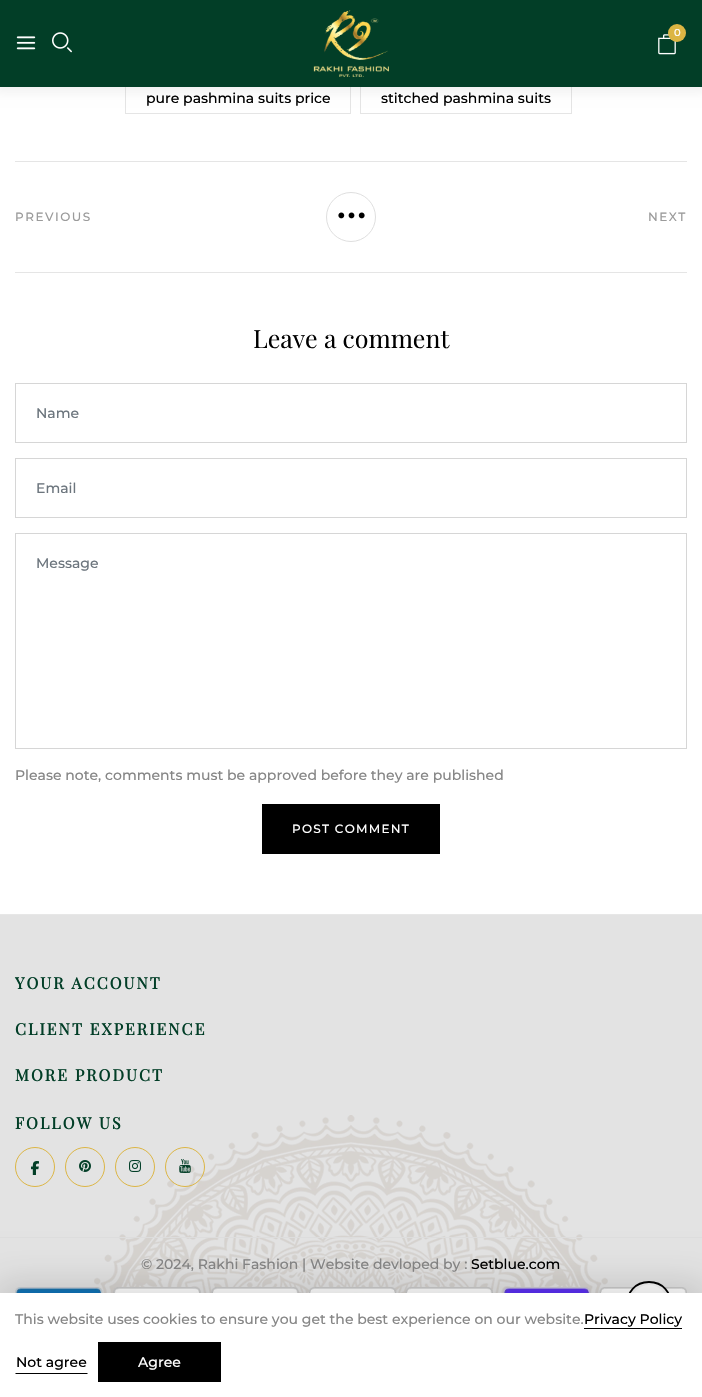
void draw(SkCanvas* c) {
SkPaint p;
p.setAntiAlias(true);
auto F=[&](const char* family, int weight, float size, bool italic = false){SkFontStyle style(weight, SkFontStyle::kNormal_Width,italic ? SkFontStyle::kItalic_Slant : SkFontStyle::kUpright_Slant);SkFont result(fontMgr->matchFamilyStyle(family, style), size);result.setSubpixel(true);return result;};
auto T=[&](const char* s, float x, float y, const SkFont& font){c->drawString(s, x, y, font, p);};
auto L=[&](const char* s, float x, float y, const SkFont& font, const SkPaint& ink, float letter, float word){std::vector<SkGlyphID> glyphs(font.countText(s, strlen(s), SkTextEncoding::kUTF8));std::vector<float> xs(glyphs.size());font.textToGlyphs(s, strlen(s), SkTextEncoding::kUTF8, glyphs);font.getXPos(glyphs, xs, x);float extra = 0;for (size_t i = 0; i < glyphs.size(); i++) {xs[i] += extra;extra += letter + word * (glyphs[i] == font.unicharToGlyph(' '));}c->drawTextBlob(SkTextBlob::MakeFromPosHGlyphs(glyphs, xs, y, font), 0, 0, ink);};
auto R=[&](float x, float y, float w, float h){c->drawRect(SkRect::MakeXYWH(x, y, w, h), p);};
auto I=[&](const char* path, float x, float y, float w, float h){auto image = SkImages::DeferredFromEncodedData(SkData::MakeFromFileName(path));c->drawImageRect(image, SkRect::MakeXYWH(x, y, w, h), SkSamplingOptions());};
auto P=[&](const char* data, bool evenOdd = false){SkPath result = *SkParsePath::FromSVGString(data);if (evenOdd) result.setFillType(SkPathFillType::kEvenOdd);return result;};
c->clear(0xffffffff);
p.setStroke(true);
p.setStrokeWidth(1);
p.setColor(0xffe5e5e5);
c->drawRect(SkRect::MakeXYWH(125.5,82.5,225,31),p);
c->drawRect(SkRect::MakeXYWH(360.5,82.5,211,31),p);
p.setStroke(false);
p.setColor(0x0d000000);
p.setMaskFilter(SkMaskFilter::MakeBlur(kNormal_SkBlurStyle, 5));
c->drawRect(SkRect::MakeXYWH(-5,-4,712,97),p);
p.setMaskFilter(nullptr);
p.setColor(0xff023e27);
R(0,0,702,87);
I("1.png",16,36,20,14);
I("2.png",52,32,20,21);
I("3.png",313,10,76,67);
I("4.png",658,34,18,21);
p.setColor(0xffdcb543);
c->drawCircle(677,33,9,p);
auto f1 = F("Montserrat",500,10);
p.setColor(0xffffffff);
T("0",674,36,f1);
auto f2 = F("Montserrat",500,14);
p.setColor(0xff000000);
T("pure pashmina suits price",146,103,f2);
T("stitched pashmina suits",381,103,f2);
p.setColor(0xffe5e5e5);
R(15,161,672,1);
R(15,272,672,1);
auto f3 = F("Montserrat",500,12);
p.setColor(0xff9b9b9b);
L("PREVIOUS",15,221,f3,p,1.5,0);
p.setStroke(true);
p.setColor(0xffdfdfdf);
c->drawCircle(351,217,24.5,p);
I("5.png",338,212,27,7);
p.setStroke(false);
p.setColor(0xff9b9b9b);
L("NEXT",648,221,f3,p,1.5,0);
auto f4 = F("Playfair Display",400,25);
p.setColor(0xff000000);
T("Leave a comment",253,348,f4);
p.setStroke(true);
p.setColor(0xffd6d6d6);
c->drawRect(SkRect::MakeXYWH(15.5,383.5,671,59),p);
p.setStroke(false);
p.setColor(0xff6c757d);
T("Name",36,418,f2);
p.setStroke(true);
p.setColor(0xffd6d6d6);
c->drawRect(SkRect::MakeXYWH(15.5,458.5,671,59),p);
p.setStroke(false);
p.setColor(0xff6c757d);
T("Email",36,493,f2);
p.setStroke(true);
p.setColor(0xffd6d6d6);
c->drawRect(SkRect::MakeXYWH(15.5,533.5,671,215),p);
p.setStroke(false);
p.setColor(0xff6c757d);
T("Message",36,568,f2);
p.setColor(0xff868686);
T("Please note, comments must be approved before they are published",15,780,f2);
p.setColor(0xff000000);
R(262,804,178,50);
p.setColor(0xffffffff);
L("POST COMMENT",292,833,f3,p,1.25,0);
p.setColor(0xffe3e3e3);
R(0,915,702,378);
I("6.png",94,1115,514,178);
p.setColor(0xffe7e7e7);
R(0,914,702,1);
p.setColor(0xffdedede);
R(0,1237,702,1);
auto f5 = F("Playfair Display",700,16);
p.setColor(0xff023e27);
L("YOUR ACCOUNT",15,989,f5,p,2,0);
L("CLIENT EXPERIENCE",15,1035,f5,p,2,0);
L("MORE PRODUCT",15,1081,f5,p,2,0);
L("FOLLOW US",15,1129,f5,p,2,0);
p.setStroke(true);
p.setColor(0xffdcb543);
c->drawCircle(35,1167,19.5,p);
I("7.png",31,1161,8,14);
c->drawCircle(85,1167,19.5,p);
I("8.png",79,1160,12,12);
c->drawCircle(135,1167,19.5,p);
I("9.png",129,1160,12,12);
c->drawCircle(185,1167,19.5,p);
I("10.png",179,1159,12,14);
p.setStroke(false);
p.setColor(0xff868686);
T("© 2024, Rakhi Fashion | Website devloped by :",141,1269,f2);
p.setColor(0xff000000);
T("Setblue.com",471,1269,f2);
I("11.png",15,1287,672,6);
p.setColor(0xffffffff);
c->drawCircle(649,1304,21,p);
p.setStroke(true);
p.setStrokeWidth(4);
p.setColor(0xfff5f5f5);
c->drawCircle(649,1304,21,p);
p.setStrokeWidth(1.8);
p.setColor(0xff000000);
c->drawPath(P("M649 1282c29 0 29 44 0 44c-29 0-29-44 0-44"),p);
p.setStroke(false);
p.setColor(0x24000000);
p.setMaskFilter(SkMaskFilter::MakeBlur(kNormal_SkBlurStyle, 17.5));
c->drawRect(SkRect::MakeXYWH(-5,1283,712,114),p);
p.setMaskFilter(nullptr);
p.setColor(0xffffffff);
R(0,1293,702,104);
p.setColor(0xff868686);
T("This website uses cookies to ensure you get the best experience on our website.",15,1324,f2);
p.setColor(0xff000000);
R(584,1328,98,1);
T("Privacy Policy",584,1324,f2);
c->drawPath(P("M88 1374h-73l1-1h71z"),p);
T("Not agree",16,1367,f2);
R(98,1342,123,40);
p.setColor(0xffffffff);
T("Agree",138,1367,f2);
}
